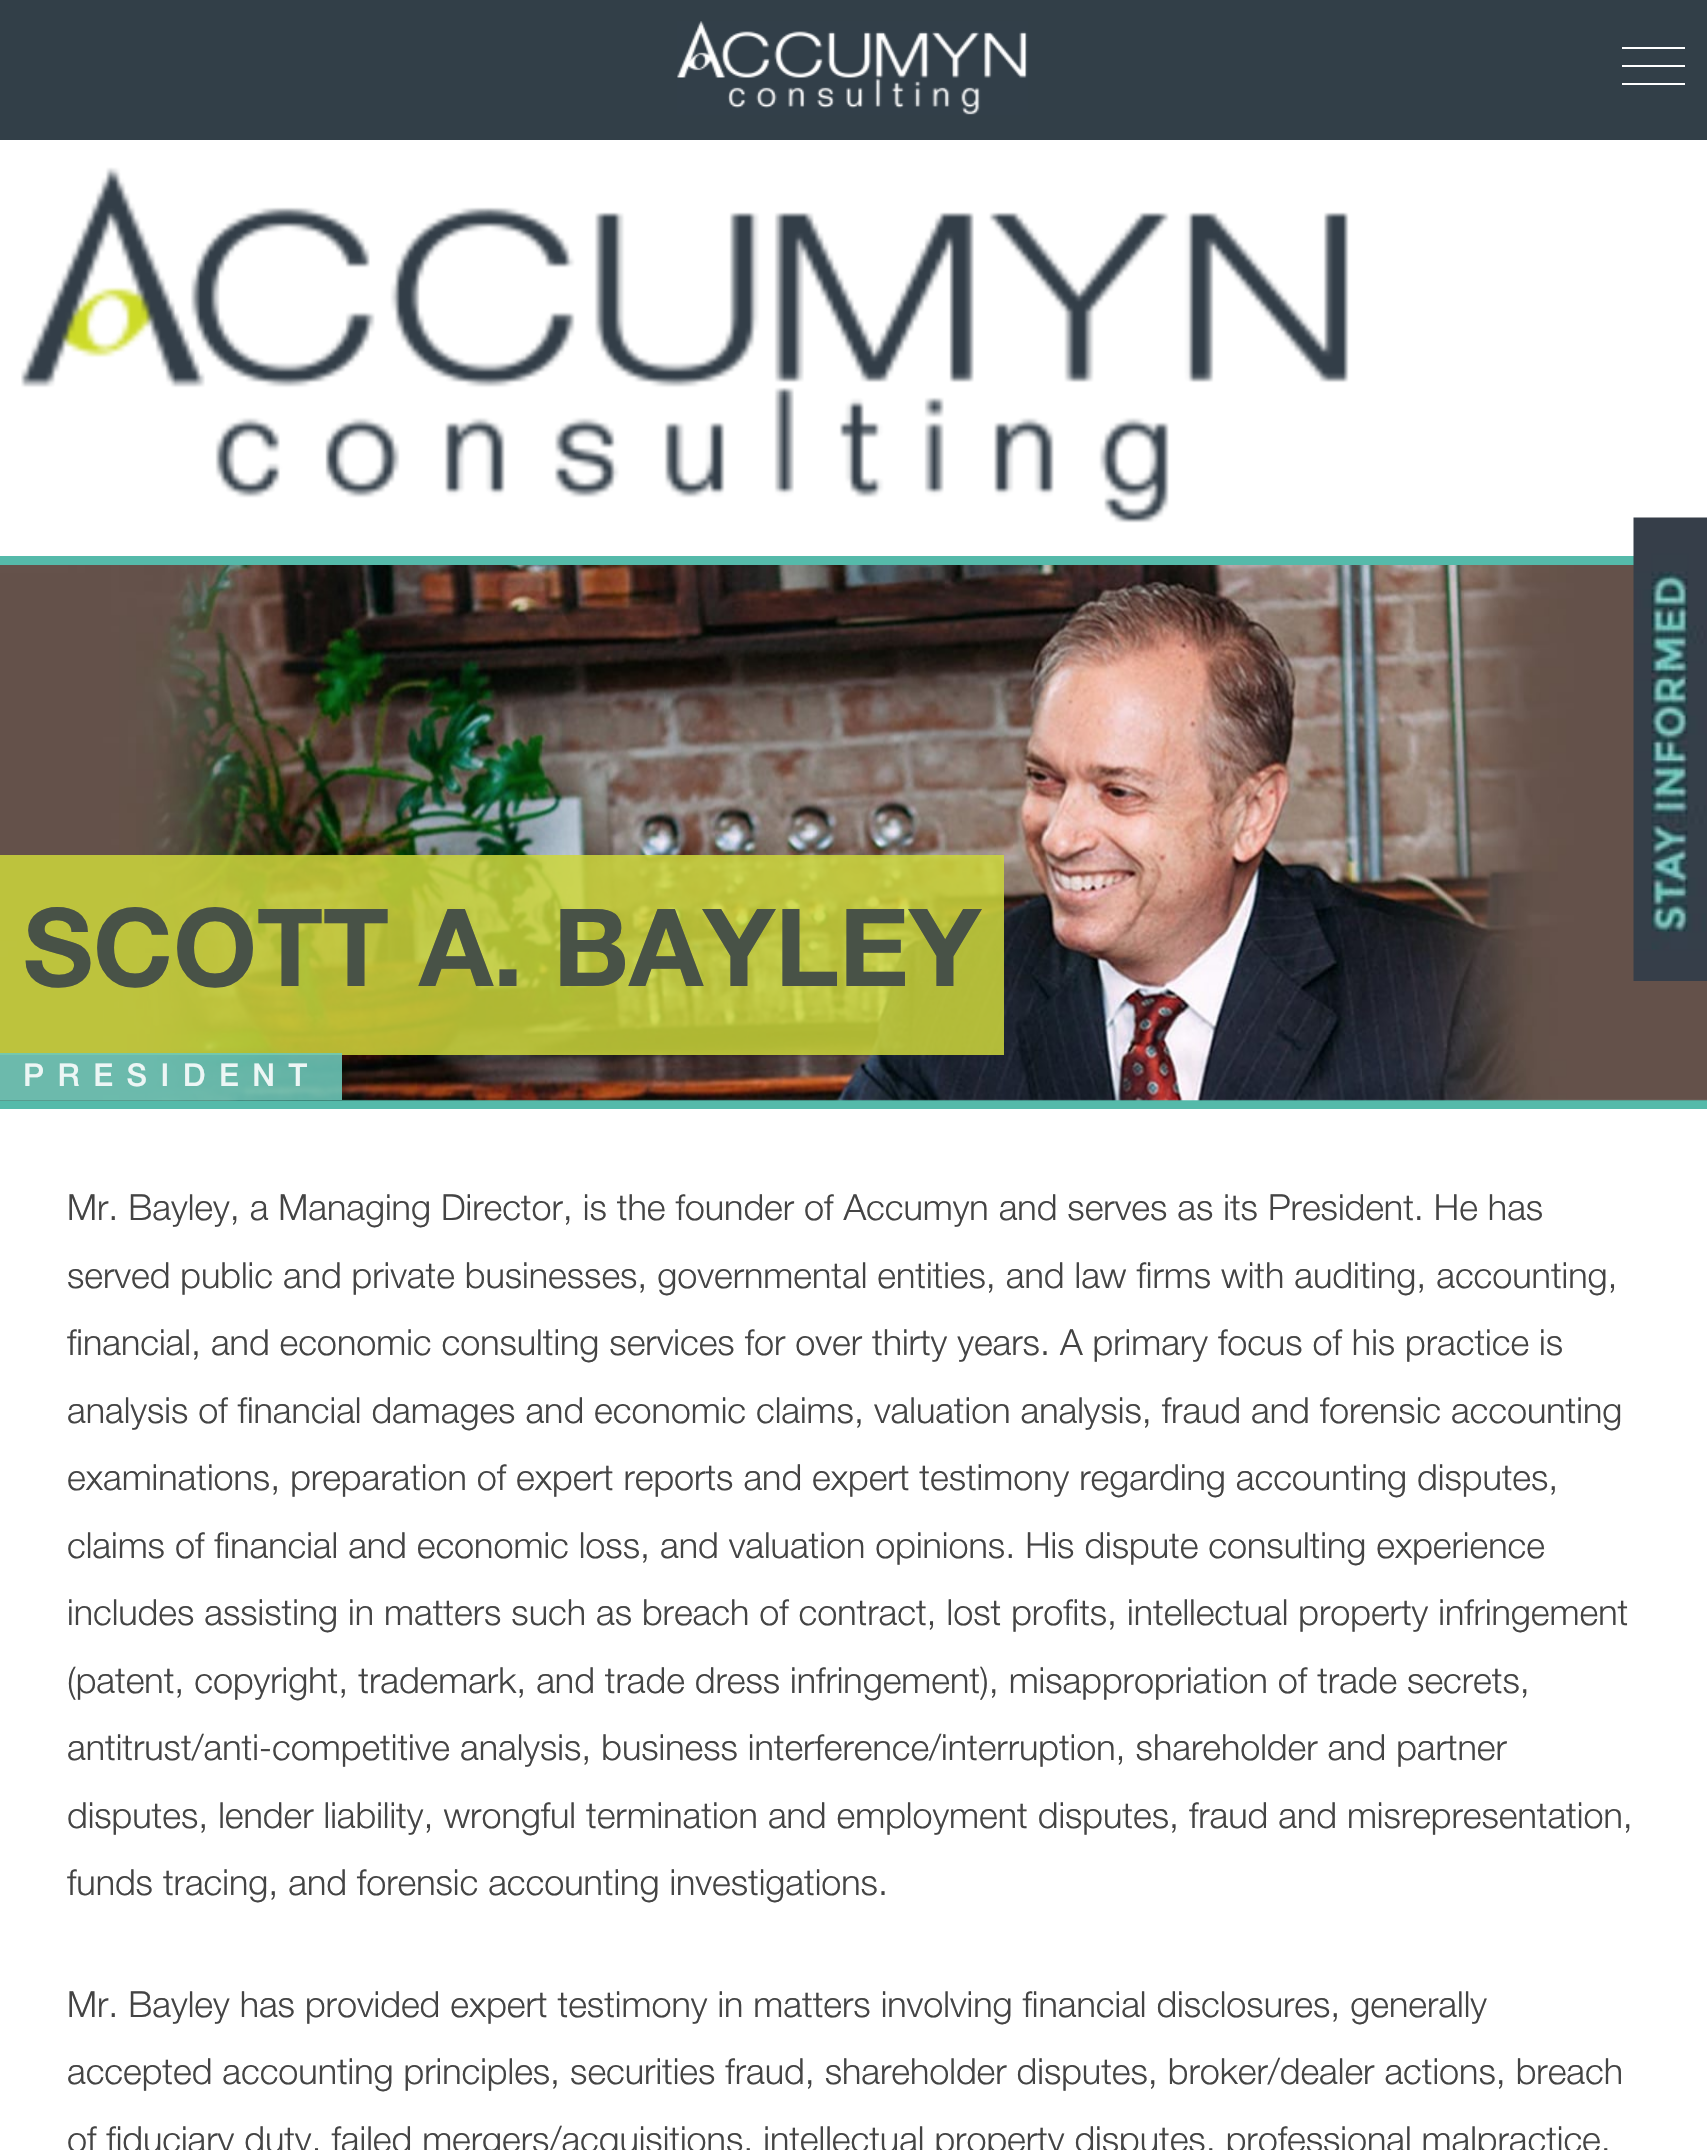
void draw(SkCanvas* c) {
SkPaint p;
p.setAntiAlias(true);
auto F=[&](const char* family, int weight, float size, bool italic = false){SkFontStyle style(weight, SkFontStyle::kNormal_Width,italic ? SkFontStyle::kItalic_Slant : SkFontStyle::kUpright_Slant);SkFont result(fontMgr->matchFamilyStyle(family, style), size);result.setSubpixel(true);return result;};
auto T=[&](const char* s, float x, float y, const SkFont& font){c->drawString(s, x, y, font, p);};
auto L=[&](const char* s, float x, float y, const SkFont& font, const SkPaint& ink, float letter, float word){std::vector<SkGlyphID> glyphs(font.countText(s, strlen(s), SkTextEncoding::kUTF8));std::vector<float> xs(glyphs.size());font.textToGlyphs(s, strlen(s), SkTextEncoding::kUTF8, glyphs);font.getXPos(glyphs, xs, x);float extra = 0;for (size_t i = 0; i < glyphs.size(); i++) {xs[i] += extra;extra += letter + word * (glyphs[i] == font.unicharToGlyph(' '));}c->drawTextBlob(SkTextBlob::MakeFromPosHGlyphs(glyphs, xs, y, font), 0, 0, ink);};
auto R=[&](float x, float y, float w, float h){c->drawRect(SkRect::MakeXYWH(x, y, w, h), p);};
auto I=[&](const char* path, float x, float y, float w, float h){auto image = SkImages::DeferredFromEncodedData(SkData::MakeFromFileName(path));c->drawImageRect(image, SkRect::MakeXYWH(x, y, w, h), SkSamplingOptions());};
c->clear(0xffffffff);
p.setColor(0xff323f48);
R(0,0,1707,140);
I("1.png",677,21,351,94);
p.setColor(0xffffffff);
R(1622,65,63,2);
R(1622,47,63,2);
R(1622,83,63,2);
I("2.png",21,167,1328,356);
p.setColor(0xff55baaa);
R(0,556,1634,9);
R(0,1100,1707,9);
I("4.png",0,565,1707,536);
I("3.png",1633,517,74,464);
p.setColor(0xd9cdd63b);
R(0,855,1004,200);
auto f1 = F("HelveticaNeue",700,108);
p.setColor(0xff485247);
T("SCOTT A. BAYLEY",23,986,f1);
p.setColor(0xe06cc8b9);
R(0,1053,342,47);
auto f2 = F("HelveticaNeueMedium",500,31.5);
p.setColor(0xffedf6f5);
L("PRESIDENT",23,1086,f2,p,13.5,0);
auto f3 = F("HelveticaNeue",300,36);
p.setColor(0xff444444);
T("Mr. Bayley, a Managing Director, is the founder of Accumyn and serves as its President. He has",67,1220,f3);
T("served public and private businesses, governmental entities, and law firms with auditing, accounting,",67,1288,f3);
T("financial, and economic consulting services for over thirty years. A primary focus of his practice is",67,1355,f3);
T("analysis of financial damages and economic claims, valuation analysis, fraud and forensic accounting",67,1423,f3);
T("examinations, preparation of expert reports and expert testimony regarding accounting disputes,",67,1490,f3);
T("claims of financial and economic loss, and valuation opinions. His dispute consulting experience",67,1558,f3);
T("includes assisting in matters such as breach of contract, lost profits, intellectual property infringement",67,1625,f3);
T("(patent, copyright, trademark, and trade dress infringement), misappropriation of trade secrets,",67,1693,f3);
T("antitrust/anti-competitive analysis, business interference/interruption, shareholder and partner",67,1760,f3);
T("disputes, lender liability, wrongful termination and employment disputes, fraud and misrepresentation,",67,1828,f3);
T("funds tracing, and forensic accounting investigations.",67,1895,f3);
T("Mr. Bayley has provided expert testimony in matters involving financial disclosures, generally",67,2017,f3);
T("accepted accounting principles, securities fraud, shareholder disputes, broker/dealer actions, breach",67,2084,f3);
T("of fiduciary duty, failed mergers/acquisitions, intellectual property disputes, professional malpractice,",67,2152,f3);
}
